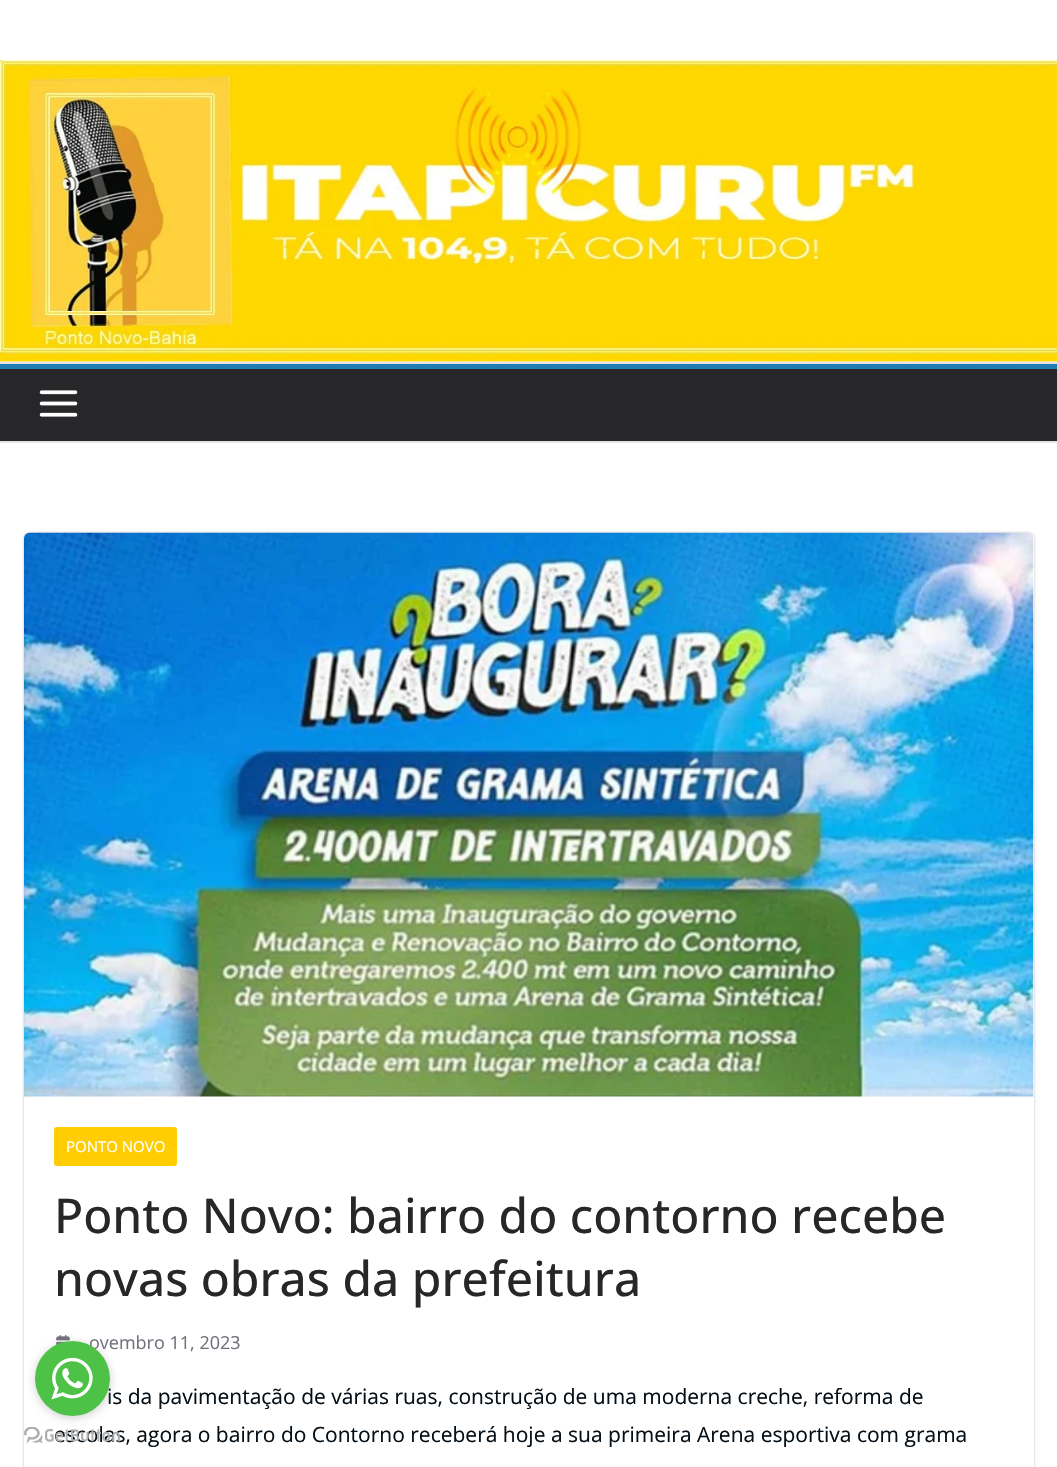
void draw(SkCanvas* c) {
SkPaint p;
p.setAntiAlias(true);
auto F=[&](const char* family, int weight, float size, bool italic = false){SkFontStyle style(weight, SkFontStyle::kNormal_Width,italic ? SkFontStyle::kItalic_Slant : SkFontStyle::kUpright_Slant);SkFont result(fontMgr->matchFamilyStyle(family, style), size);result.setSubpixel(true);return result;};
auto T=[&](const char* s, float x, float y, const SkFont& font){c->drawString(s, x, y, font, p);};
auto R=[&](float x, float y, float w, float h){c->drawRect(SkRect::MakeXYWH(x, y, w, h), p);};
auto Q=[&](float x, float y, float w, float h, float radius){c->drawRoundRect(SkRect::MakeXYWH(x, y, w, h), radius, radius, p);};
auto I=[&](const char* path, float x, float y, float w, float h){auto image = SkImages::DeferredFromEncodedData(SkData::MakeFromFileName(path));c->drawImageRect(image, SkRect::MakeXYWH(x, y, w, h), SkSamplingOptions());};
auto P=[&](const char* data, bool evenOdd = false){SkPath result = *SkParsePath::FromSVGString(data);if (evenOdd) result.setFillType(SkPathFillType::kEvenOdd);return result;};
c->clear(0xffe4e4e7);
p.setColor(0xffffffff);
R(0,0,1057,362);
I("1.png",0,60,1057,302);
p.setColor(0xff27272a);
R(0,369,1057,72);
p.setColor(0xff207daf);
R(0,364,1057,5);
I("2.png",39,390,39,27);
p.setColor(0xffffffff);
R(0,443,1057,1024);
c->save();
c->clipPath(P("M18 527h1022v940h-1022zm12 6h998c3.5 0 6 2.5 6 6v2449c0 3.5-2.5 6-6 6h-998c-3.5 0-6-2.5-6-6v-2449c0-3.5 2.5-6 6-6z",true),true);
p.setColor(0x3d000000);
p.setMaskFilter(SkMaskFilter::MakeBlur(kNormal_SkBlurStyle, 1.5));
c->drawRoundRect(SkRect::MakeXYWH(24,533,1010,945),6,6,p);
p.setMaskFilter(nullptr);
c->restore();
I("3.png",24,532,1010,565);
p.setColor(0xffffcd01);
Q(54,1127,123,39,3);
auto f1 = F("Open Sans",400,15);
p.setColor(0xffffffff);
T("PONTO NOVO",66,1152,f1);
auto f2 = F("Open Sans",500,48);
p.setColor(0xff27272a);
T("Ponto Novo: bairro do contorno recebe",54,1233,f2);
T("novas obras da prefeitura",54,1296,f2);
I("4.png",56,1335,14,10);
auto f3 = F("Open Sans",400,18);
p.setColor(0xff71717a);
T("ovembro 11, 2023",89,1349,f3);
auto f4 = F("Open Sans",400,21);
p.setColor(0xff040e16);
T("is da pavimentação de várias ruas, construção de uma moderna creche, reforma de",107,1404,f4);
T("escolas, agora o bairro do Contorno receberá hoje a sua primeira Arena esportiva com grama",54,1442,f4);
I("6.png",24,1427,96,16);
p.setColor(0x66888888);
p.setMaskFilter(SkMaskFilter::MakeBlur(kNormal_SkBlurStyle, 5));
c->drawRoundRect(SkRect::MakeXYWH(35,1343,75,75),37.5,37.5,p);
p.setMaskFilter(nullptr);
p.setColor(0xff4dc247);
c->drawCircle(72.5,1378.5,37.5,p);
I("5.png",51,1357,42,43);
}
